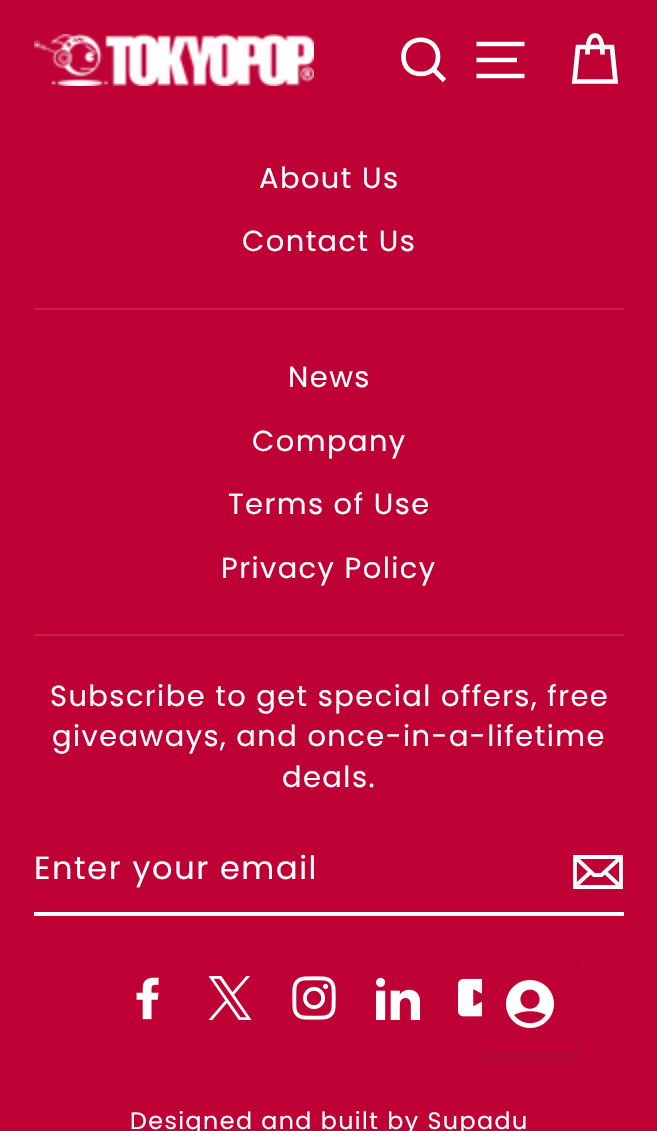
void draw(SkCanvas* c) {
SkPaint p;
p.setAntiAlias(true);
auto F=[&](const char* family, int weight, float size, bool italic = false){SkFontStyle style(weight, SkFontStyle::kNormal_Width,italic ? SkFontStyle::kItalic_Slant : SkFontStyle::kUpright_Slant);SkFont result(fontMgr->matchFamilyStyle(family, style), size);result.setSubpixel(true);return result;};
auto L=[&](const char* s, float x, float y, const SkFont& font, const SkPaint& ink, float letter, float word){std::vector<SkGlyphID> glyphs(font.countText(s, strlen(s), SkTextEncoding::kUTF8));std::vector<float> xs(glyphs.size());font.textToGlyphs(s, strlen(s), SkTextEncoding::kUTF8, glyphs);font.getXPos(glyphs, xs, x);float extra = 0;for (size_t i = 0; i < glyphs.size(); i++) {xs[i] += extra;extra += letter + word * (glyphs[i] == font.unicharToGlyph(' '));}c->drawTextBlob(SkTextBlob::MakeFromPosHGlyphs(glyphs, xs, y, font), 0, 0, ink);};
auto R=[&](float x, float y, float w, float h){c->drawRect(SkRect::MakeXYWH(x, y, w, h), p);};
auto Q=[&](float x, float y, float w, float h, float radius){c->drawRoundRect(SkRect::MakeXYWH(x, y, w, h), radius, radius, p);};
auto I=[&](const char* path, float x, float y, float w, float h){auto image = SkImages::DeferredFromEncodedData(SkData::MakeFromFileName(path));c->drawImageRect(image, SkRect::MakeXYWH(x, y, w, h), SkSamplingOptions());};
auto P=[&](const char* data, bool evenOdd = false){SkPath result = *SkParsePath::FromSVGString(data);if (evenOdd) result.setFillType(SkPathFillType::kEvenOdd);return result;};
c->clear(0xffbe0035);
I("1.png",34,34,280,52);
p.setStroke(true);
p.setStrokeWidth(4.7);
p.setColor(0xffffffff);
c->drawPath(P("M438 57c0 22.5-34.5 22.5-34.5 0c0-23 34.5-23 34.5 0zm6.5 23.5l-11-11"),p);
c->drawPath(P("M476.5 44h48m-48 16h40.5m-40.5 16h48"),p);
c->drawPath(P("M587.5 54.5c0-15 3.5-19 7.5-19c4 0 7.5 4 7.5 19m-24.5-7.5h34l3.5 34.5h-41z"),p);
auto f1 = F("Poppins",400,28.9);
p.setStroke(false);
L("About Us",259,188,f1,p,1.45,0);
L("Contact Us",242,251,f1,p,1.45,0);
p.setColor(0xffc61f4d);
R(34,308,590,2);
p.setColor(0xffffffff);
L("News",288,387,f1,p,1.45,0);
L("Company",252,451,f1,p,1.45,0);
L("Terms of Use",228,514,f1,p,1.45,0);
L("Privacy Policy",221,578,f1,p,1.45,0);
p.setColor(0xffc61f4d);
R(34,634,590,2);
p.setColor(0xffffffff);
L("Subscribe to get special offers, free",50,706,f1,p,1.45,0);
L("giveaways, and once-in-a-lifetime",52,746,f1,p,1.45,0);
L("deals.",282,787,f1,p,1.45,0);
R(34,912,590,4);
auto f2 = F("Poppins",400,32);
L("Enter your email",34,879,f2,p,1.6,0);
p.setStroke(true);
p.setStrokeWidth(3.8);
c->drawPath(P("M621 887h-46v-30h46zm-46-30l19 18h7.5l19.5-18m-30.5 15l-15.5 14.5m46 .5l-16-15"),p);
I("2.png",136,977,23,43);
I("3.png",208,976,44,44);
I("4.png",292,976,44,44);
I("5.png",376,977,44,43);
I("6.png",458,978,24,39);
auto f3 = F("Poppins",400,23.75);
p.setStroke(false);
L("Designed and built by Supadu",130,1129,f3,p,1.45,0);
p.setColor(0x14373f47);
p.setMaskFilter(SkMaskFilter::MakeBlur(kNormal_SkBlurStyle, 4));
c->drawRoundRect(SkRect::MakeXYWH(482,964,96,96),4,4,p);
p.setMaskFilter(nullptr);
p.setStroke(true);
p.setStrokeWidth(2);
p.setColor(0x0a373f47);
c->drawRect(SkRect::MakeXYWH(481,955,98,98),p);
p.setStroke(false);
p.setColor(0xffbe0035);
Q(482,956,96,96,4);
I("7.png",506,980,48,48);
}
